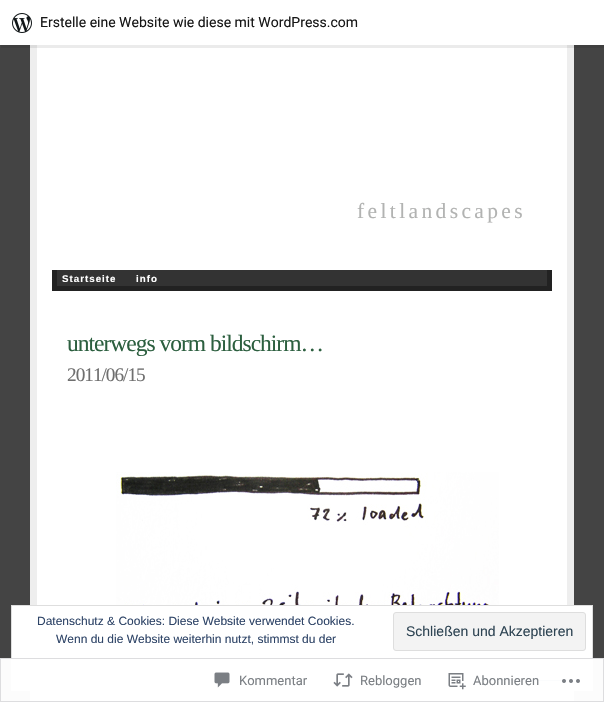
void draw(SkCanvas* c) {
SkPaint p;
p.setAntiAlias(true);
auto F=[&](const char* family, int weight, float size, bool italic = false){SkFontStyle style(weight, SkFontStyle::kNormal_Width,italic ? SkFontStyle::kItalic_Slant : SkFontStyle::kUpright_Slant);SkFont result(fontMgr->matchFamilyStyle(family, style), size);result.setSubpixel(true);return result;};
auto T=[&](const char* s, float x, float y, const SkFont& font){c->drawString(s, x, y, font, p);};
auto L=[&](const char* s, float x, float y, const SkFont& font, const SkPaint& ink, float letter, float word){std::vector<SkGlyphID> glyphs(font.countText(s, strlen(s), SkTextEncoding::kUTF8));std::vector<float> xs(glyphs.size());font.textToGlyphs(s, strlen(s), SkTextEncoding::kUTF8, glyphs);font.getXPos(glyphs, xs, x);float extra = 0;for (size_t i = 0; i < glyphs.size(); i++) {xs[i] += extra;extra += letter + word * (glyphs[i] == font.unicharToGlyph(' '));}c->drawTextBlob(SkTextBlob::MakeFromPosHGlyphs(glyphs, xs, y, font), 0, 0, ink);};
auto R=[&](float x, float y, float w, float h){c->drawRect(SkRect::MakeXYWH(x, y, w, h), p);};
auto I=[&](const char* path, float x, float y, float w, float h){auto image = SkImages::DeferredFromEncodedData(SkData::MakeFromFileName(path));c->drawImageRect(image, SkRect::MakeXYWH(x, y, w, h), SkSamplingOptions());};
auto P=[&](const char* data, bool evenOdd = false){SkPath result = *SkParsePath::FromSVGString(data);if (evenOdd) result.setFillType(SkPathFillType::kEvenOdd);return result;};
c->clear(0xff444444);
p.setColor(0xffffffff);
R(37,45,530,657);
p.setColor(0xffeeeeee);
R(567,45,7,657);
R(30,45,7,657);
p.setColor(0x14000000);
c->drawPath(P("M1 45v3h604v-45h-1v42z"),p);
p.setColor(0xffffffff);
R(0,0,604,45);
I("1.png",12,13,20,20);
auto f1 = F("Roboto",400,14);
p.setColor(0xff171717);
T("Erstelle eine Website wie diese mit WordPress.com",40,27,f1);
auto f2 = F("Liberation Serif",400,21.5);
p.setColor(0xffb2b3b2);
L("f e l t l a n d s c a p e s",357,218,f2,p,-1,0);
p.setColor(0xff333333);
R(57,270,490,16);
p.setColor(0xff222222);
R(547,270,5,21);
R(52,286,500,5);
R(52,270,5,21);
auto f3 = F("Liberation Sans",700,9.75);
p.setColor(0xffffffff);
L("Startseite",62,282,f3,p,1,0);
L("info",136,282,f3,p,1,0);
auto f4 = F("Liberation Serif",400,23.5);
p.setColor(0xff2c5f3f);
L("unterwegs vorm bildschirm…",67,351,f4,p,-1,0);
auto f5 = F("Liberation Serif",400,19.25);
p.setColor(0xff6f6f6f);
L("2011/06/15",67,381,f5,p,-1,0);
I("2.png",116,472,383,133);
p.setColor(0xffffffff);
c->drawRect(SkRect::MakeXYWH(11.5,605.5,581,85),p);
p.setStroke(true);
p.setStrokeWidth(1);
p.setColor(0xffdedede);
c->drawRect(SkRect::MakeXYWH(11.5,605.5,581,85),p);
auto f6 = F("Liberation Sans",400,12);
p.setStroke(false);
p.setColor(0xff2e4467);
T("Datenschutz & Cookies: Diese Website verwendet Cookies.",37,625,f6);
T("Wenn du die Website weiterhin nutzt, stimmst du der",56,643,f6);
p.setColor(0xfff3f3f3);
c->drawRoundRect(SkRect::MakeXYWH(393.5,612.5,192,38),2.5,2.5,p);
p.setStroke(true);
p.setColor(0xffdedede);
c->drawRoundRect(SkRect::MakeXYWH(393.5,612.5,192,38),2.5,2.5,p);
auto f7 = F("Liberation Sans",400,14);
p.setStroke(false);
p.setColor(0xff2e4453);
T("Schließen und Akzeptieren",406,636,f7);
p.setColor(0xff2e4467);
R(477,680,90,1);
p.setColor(0xfaffffff);
R(0,658,604,44);
p.setStroke(true);
p.setColor(0xfadcdcde);
c->drawRect(SkRect::MakeXYWH(.5,658.5,603,43),p);
I("3.png",214,672,16,16);
auto f8 = F("Roboto",400,13);
p.setStroke(false);
p.setColor(0xff7b7f84);
T("Kommentar",239,685,f8);
I("4.png",333,673,20,14);
T("Rebloggen",360,685,f8);
I("5.png",448,673,18,17);
T("Abonnieren",473,685,f8);
I("6.png",562,679,18,4);
}
